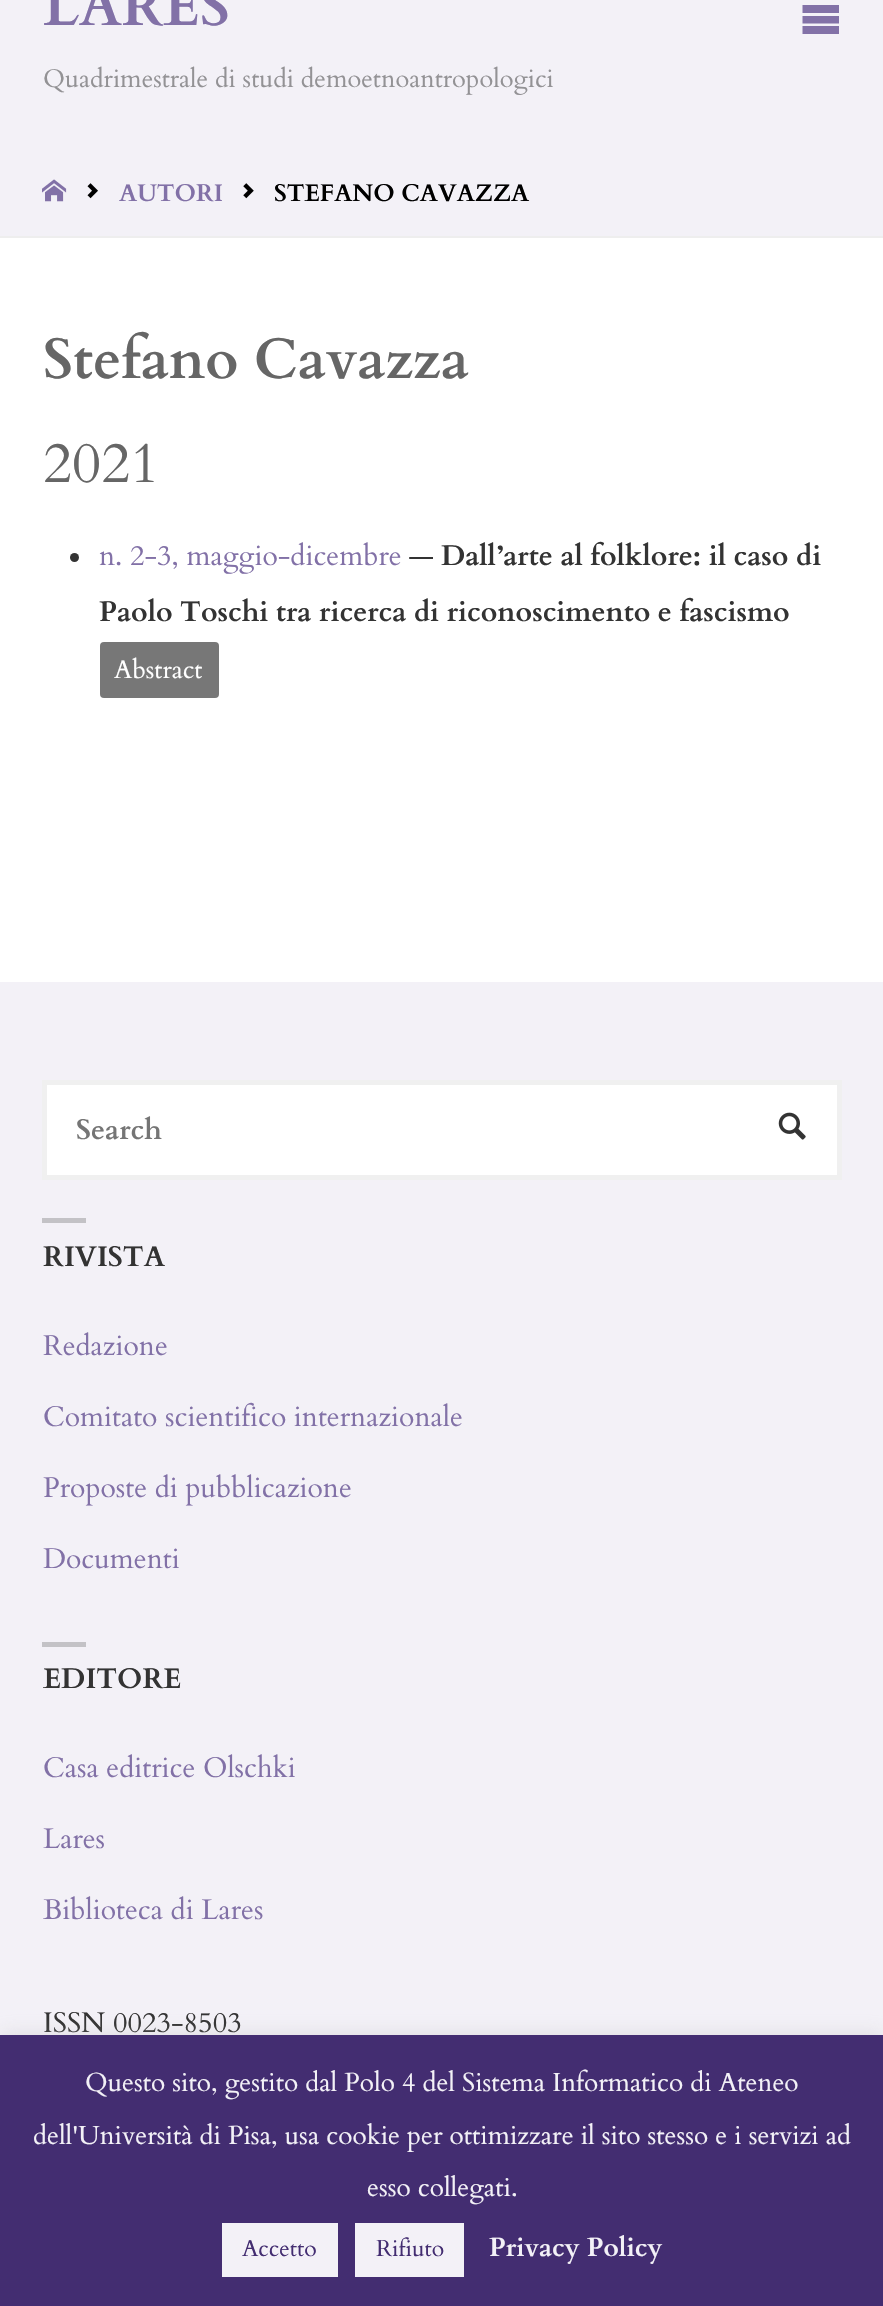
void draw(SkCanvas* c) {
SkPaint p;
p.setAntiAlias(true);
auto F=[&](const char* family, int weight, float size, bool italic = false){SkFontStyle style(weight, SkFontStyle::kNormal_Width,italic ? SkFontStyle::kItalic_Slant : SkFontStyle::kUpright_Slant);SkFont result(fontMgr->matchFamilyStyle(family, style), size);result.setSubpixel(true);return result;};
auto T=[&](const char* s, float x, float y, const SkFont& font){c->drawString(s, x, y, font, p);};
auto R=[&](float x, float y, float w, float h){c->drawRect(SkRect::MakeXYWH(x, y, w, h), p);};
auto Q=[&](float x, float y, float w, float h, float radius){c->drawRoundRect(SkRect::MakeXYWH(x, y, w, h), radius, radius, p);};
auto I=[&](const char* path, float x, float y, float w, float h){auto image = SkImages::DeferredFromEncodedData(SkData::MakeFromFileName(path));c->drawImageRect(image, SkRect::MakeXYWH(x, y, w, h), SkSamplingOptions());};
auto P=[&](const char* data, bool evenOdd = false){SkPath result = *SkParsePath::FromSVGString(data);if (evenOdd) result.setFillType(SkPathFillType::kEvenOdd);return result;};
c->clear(0xffffffff);
p.setColor(0xfff3f1f7);
R(0,0,883,236);
auto f1 = F("Cardo",700,56.75);
p.setColor(0xff8271a7);
T("LARES",43,25,f1);
auto f2 = F("Cardo",400,25.5);
p.setColor(0xff939295);
T("Quadrimestrale di studi demoetnoantropologici",43,87,f2);
p.setColor(0xff8271a7);
c->drawPath(P("M802.5 5h36.5v8h-36.5zm0 11h36.5v7.5h-36.5zm0 10h36.5v8h-36.5z"),p);
p.setColor(0xffeeeeee);
R(0,236,883,2);
I("1.png",42,179,25,23);
I("2.png",87,183,11,16);
auto f3 = F("Cardo",700,24.1);
p.setColor(0xff8271a7);
T("AUTORI",119,201,f3);
I("3.png",243,183,11,16);
p.setColor(0xff000000);
T("STEFANO CAVAZZA",274,201,f3);
p.setColor(0xff666666);
T("Stefano Cavazza",43,378,f1);
auto f4 = F("Cardo",400,56.75);
T("2021",43,482,f4);
p.setColor(0xff333333);
c->drawCircle(74.5,557.5,4.5,p);
auto f5 = F("Cardo",400,28.35);
p.setColor(0xff8271a7);
T("n. 2-3, maggio-dicembre",99,565,f5);
p.setColor(0xff333333);
T("—",409,565,f5);
auto f6 = F("Cardo",700,28.35);
T("Dall’arte al folklore: il caso di",441,565,f6);
T("Paolo Toschi tra ricerca di riconoscimento e fascismo",99,621,f6);
p.setColor(0xff777777);
Q(100,642,119,56,4);
p.setColor(0xffffffff);
T("Abstract",114,678,f2);
p.setColor(0xfff3f1f7);
R(0,982,883,1053);
p.setColor(0xffffffff);
c->drawRect(SkRect::MakeXYWH(44.5,1082.5,795,95),p);
p.setStroke(true);
p.setStrokeWidth(5);
p.setColor(0xfff0f0f0);
c->drawRect(SkRect::MakeXYWH(44.5,1082.5,795,95),p);
p.setStroke(false);
p.setColor(0xff757575);
T("Search",76,1139,f6);
I("4.png",778,1112,28,28);
p.setColor(0xffc3c2c6);
R(42,1218,44,5);
p.setColor(0xff333333);
T("RIVISTA",43,1266,f6);
p.setColor(0xff8271a7);
T("Redazione",43,1355,f5);
T("Comitato scientifico internazionale",43,1426,f5);
T("Proposte di pubblicazione",43,1497,f5);
T("Documenti",43,1568,f5);
p.setColor(0xffc3c2c6);
R(42,1642,44,5);
p.setColor(0xff333333);
T("EDITORE",43,1688,f6);
p.setColor(0xff8271a7);
T("Casa editrice Olschki",43,1777,f5);
T("Lares",43,1848,f5);
T("Biblioteca di Lares",43,1919,f5);
p.setColor(0xff333333);
T("ISSN 0023-8503",43,2032,f5);
p.setColor(0x4dacabab);
p.setMaskFilter(SkMaskFilter::MakeBlur(kNormal_SkBlurStyle, 9));
c->drawRect(SkRect::MakeXYWH(0,2034,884,271),p);
p.setMaskFilter(nullptr);
p.setColor(0xff432d71);
R(0,2035,883,271);
auto f7 = F("Cardo",400,26.25);
p.setColor(0xfff3f1f7);
T("Questo sito, gestito dal Polo 4 del Sistema Informatico di Ateneo",85,2091,f7);
T("dell'Università di Pisa, usa cookie per ottimizzare il sito stesso e i servizi ad",33,2144,f7);
T("esso collegati.",367,2196,f7);
R(222,2223,116,54);
auto f8 = F("Cardo",400,23);
p.setColor(0xff432d71);
T("Accetto",242,2256,f8);
p.setColor(0xfff3f1f7);
R(355,2223,109,54);
p.setColor(0xff432d71);
T("Rifiuto",376,2256,f8);
auto f9 = F("Cardo",700,26.25);
p.setColor(0xfff3f1f7);
T("Privacy Policy",489,2256,f9);
}
